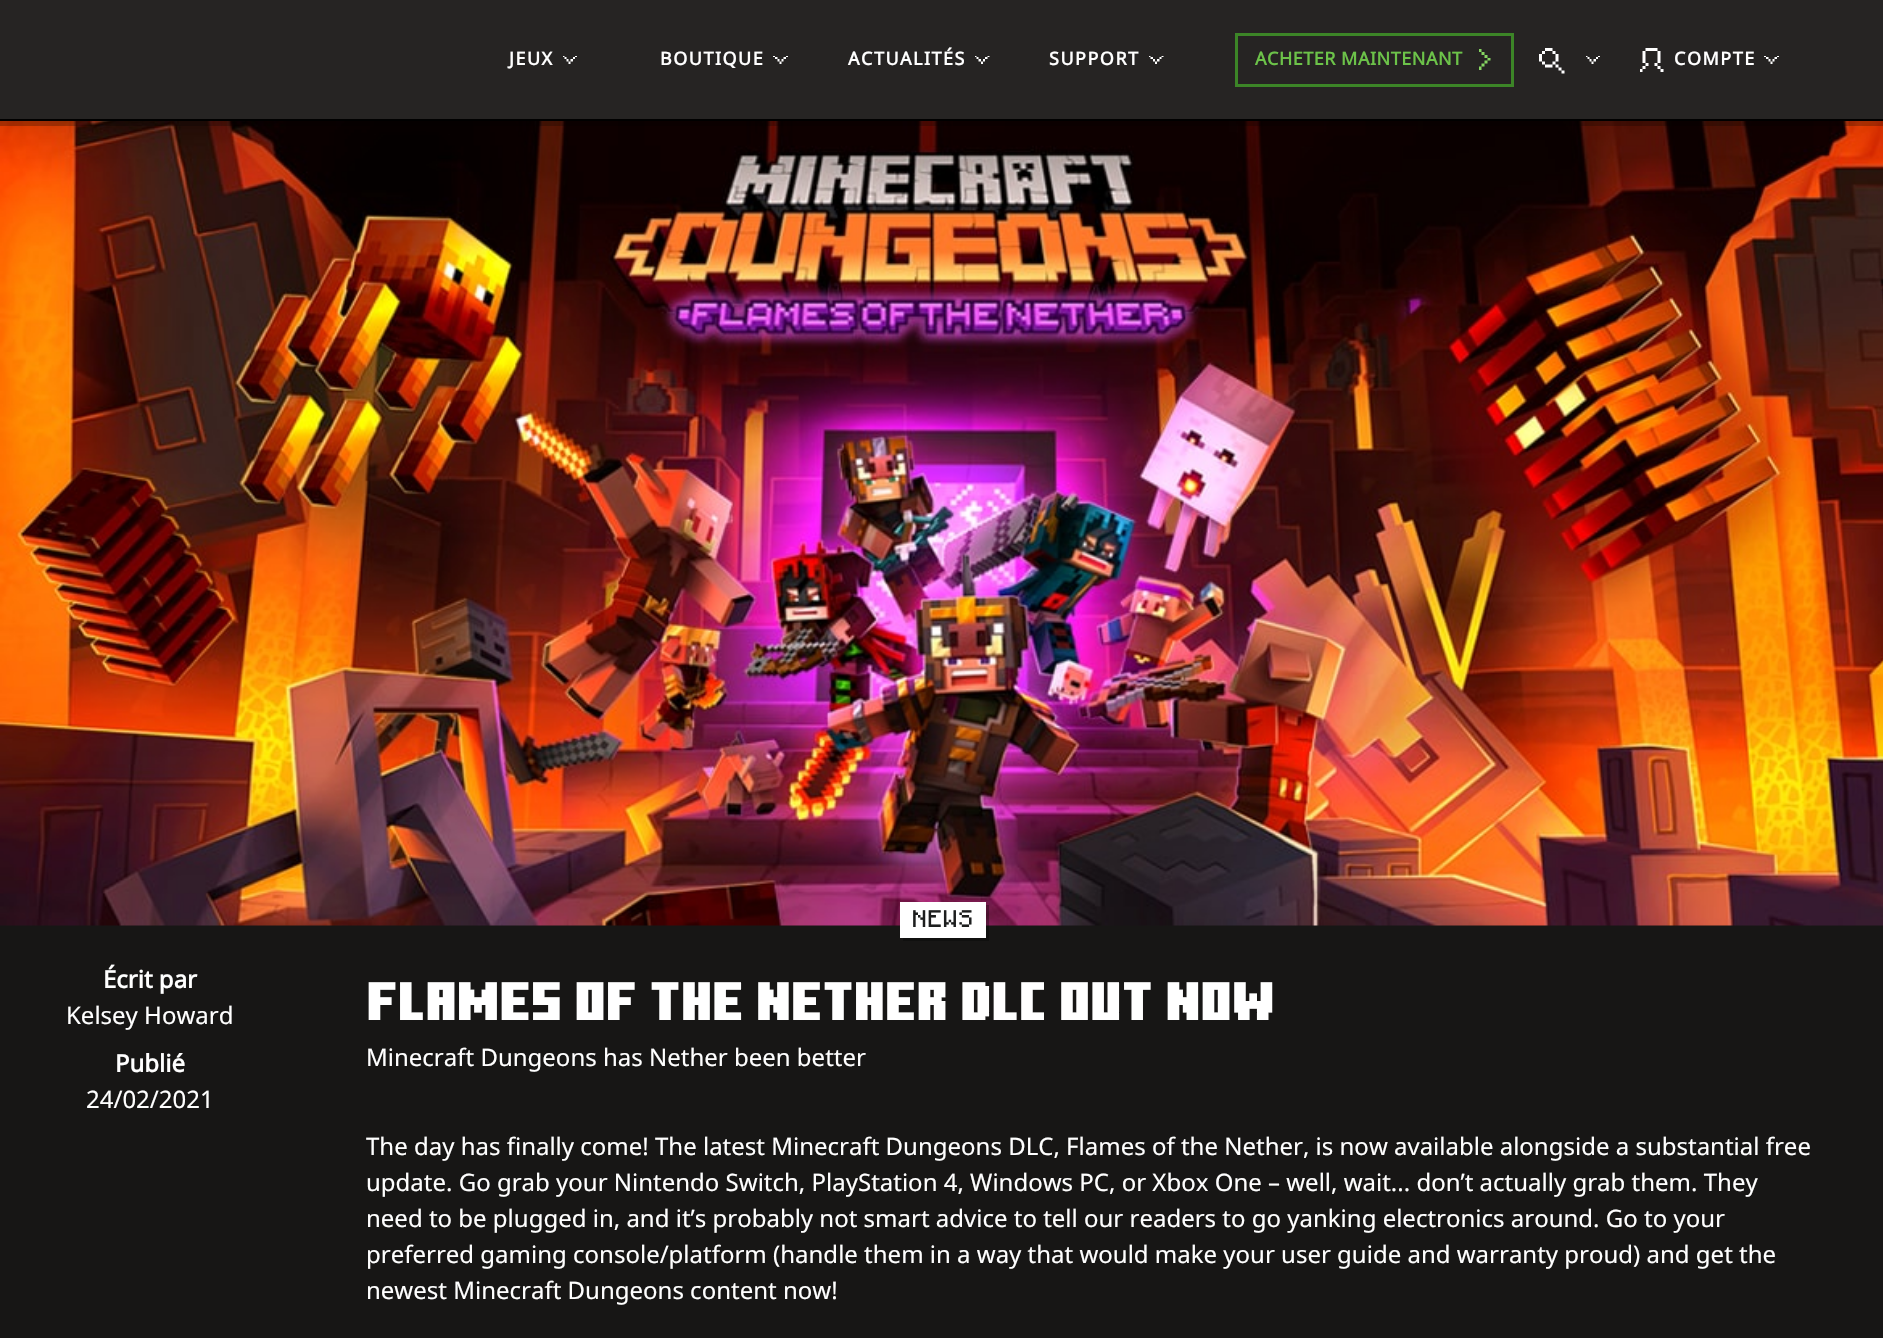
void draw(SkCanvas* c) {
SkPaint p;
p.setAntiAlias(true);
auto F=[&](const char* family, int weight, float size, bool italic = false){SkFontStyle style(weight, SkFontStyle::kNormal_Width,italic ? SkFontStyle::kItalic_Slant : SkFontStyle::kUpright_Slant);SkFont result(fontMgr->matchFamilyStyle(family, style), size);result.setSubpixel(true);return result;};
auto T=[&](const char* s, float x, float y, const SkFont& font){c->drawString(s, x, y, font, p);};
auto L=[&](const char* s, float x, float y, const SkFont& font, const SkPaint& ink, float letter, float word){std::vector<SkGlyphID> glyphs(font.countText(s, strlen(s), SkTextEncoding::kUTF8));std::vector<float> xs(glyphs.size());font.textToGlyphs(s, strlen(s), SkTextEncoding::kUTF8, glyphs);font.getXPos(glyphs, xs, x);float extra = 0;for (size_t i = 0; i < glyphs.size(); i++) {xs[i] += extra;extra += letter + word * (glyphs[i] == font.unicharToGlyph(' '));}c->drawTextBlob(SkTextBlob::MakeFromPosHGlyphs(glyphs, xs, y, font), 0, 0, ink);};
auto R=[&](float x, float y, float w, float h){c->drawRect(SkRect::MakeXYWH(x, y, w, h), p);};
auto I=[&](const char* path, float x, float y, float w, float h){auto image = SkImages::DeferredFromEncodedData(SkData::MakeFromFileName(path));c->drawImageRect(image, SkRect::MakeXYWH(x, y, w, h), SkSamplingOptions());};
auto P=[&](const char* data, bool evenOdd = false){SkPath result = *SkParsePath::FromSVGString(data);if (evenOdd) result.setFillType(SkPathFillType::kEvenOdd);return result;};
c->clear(0xff171615);
p.setColor(0xff262423);
R(0,0,1883,119);
I("3.png",0,121,1883,805);
p.setColor(0x40000000);
R(0,121,1883,5);
p.setColor(0xff000000);
R(0,119,1883,2);
auto f1 = F("Noto Sans",700,18);
p.setColor(0xffffffff);
L("JEUX",509,65,f1,p,1.5,0);
c->drawPath(P("M563 56v1h1.5v2h2v2.5h2v2.5h2v-2.5h2.5v-2.5h2v-2h2v-1h-2v1h-2v2h-2.5v2.5h-2v-2.5h-2v-2h-2v-1z"),p);
L("BOUTIQUE",660,65,f1,p,1.5,0);
c->drawPath(P("M775 56h-2v1h2v2h2.5v2.5h2v2.5h2v-2.5h2v-2.5h2.5v-2h2v-1h-2v1h-2.5v2h-2v2.5h-2v-2.5h-2v-2h-2.5z"),p);
L("ACTUALITÉS",848,65,f1,p,1.5,0);
c->drawPath(P("M975 56v1h1.5v2h2v2.5h2.5v2.5h2v-2.5h2v-2.5h2.5v-2h2v-1h-2v1h-2.5v2h-2v2.5h-2v-2.5h-2.5v-2h-2v-1z"),p);
L("SUPPORT",1049,65,f1,p,1.5,0);
c->drawPath(P("M1149 56v1h1.5v2h2.5v2.5h2v2.5h2v-2.5h2.5v-2.5h2v-2h2v-1h-2v1h-2v2h-2.5v2.5h-2v-2.5h-2v-2h-2.5v-1z"),p);
p.setStroke(true);
p.setStrokeWidth(3);
p.setColor(0xff3c8527);
c->drawRect(SkRect::MakeXYWH(1236.5,34.5,276,51),p);
p.setStroke(false);
p.setColor(0xff6cc349);
L("ACHETER MAINTENANT",1255,65,f1,p,.5,0);
p.setColor(0xff86d562);
c->drawPath(P("M1479 49v3h2.5v3h3v3h3v2.5h-3v3h-3v3h-2.5v3.5h2.5v-3.5h3v-3h3v-3h3v-2.5h-3v-3h-3v-3h-3v-3z"),p);
I("1.png",1539,48,26,26);
p.setColor(0xffffffff);
c->drawPath(P("M1586 56v1h1.5v2h2v2.5h2v2.5h2v-2.5h2.5v-2.5h2v-2h2v-1h-2v1h-2v2h-2.5v2.5h-2v-2.5h-2v-2h-2v-1z"),p);
I("2.png",1640,48,24,24);
L("COMPTE",1674,65,f1,p,1.5,0);
c->drawPath(P("M1764 56v1h2v2h2.5v2.5h2v2.5h2v-2.5h2v-2.5h2.5v-2h2v-1h-2v1h-2.5v2h-2v2.5h-2v-2.5h-2v-2h-2.5v-1z"),p);
p.setColor(0x4d000000);
c->drawPath(P("M903 938v3h86v-36h-4v33z"),p);
p.setColor(0xffffffff);
R(900,902,86,36);
auto f2 = F("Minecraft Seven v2",400,24);
p.setColor(0xff1d1e1e);
L("NEWS",912,927,f2,p,1,0);
auto f3 = F("Noto Sans",700,24);
p.setColor(0xffffffff);
T("Écrit par",103,988,f3);
auto f4 = F("Noto Sans",400,24);
T("Kelsey Howard",66,1024,f4);
T("Publié",115,1072,f3);
T("24/02/2021",86,1108,f4);
auto f5 = F("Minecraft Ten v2",400,54);
L("Flames of the Nether DLC Out Now",366,1020,f5,p,-.8,0);
T("Minecraft Dungeons has Nether been better",366,1066,f4);
T("The day has finally come! The latest Minecraft Dungeons DLC, Flames of the Nether, is now available alongside a substantial free",366,1155,f4);
T("update. Go grab your Nintendo Switch, PlayStation 4, Windows PC, or Xbox One – well, wait... don’t actually grab them. They",366,1191,f4);
T("need to be plugged in, and it’s probably not smart advice to tell our readers to go yanking electronics around. Go to your",366,1227,f4);
T("preferred gaming console/platform (handle them in a way that would make your user guide and warranty proud) and get the",366,1263,f4);
T("newest Minecraft Dungeons content now!",366,1299,f4);
}
